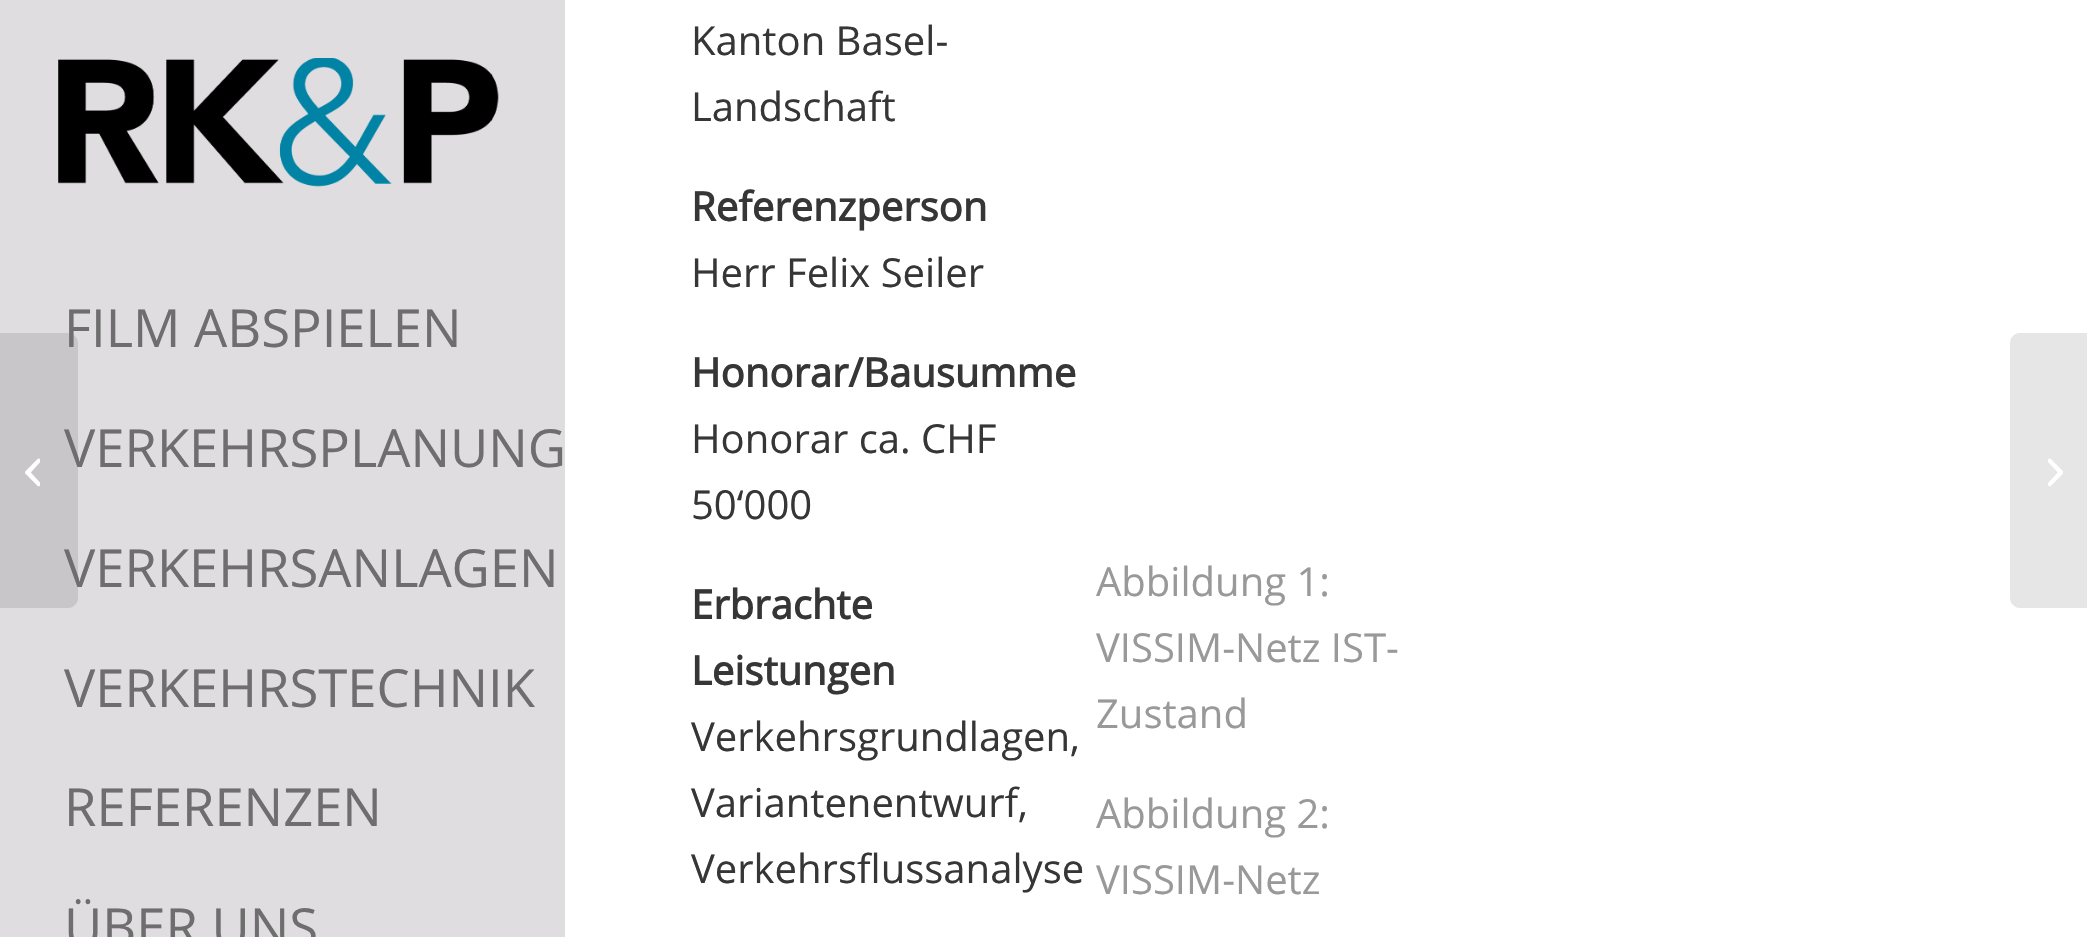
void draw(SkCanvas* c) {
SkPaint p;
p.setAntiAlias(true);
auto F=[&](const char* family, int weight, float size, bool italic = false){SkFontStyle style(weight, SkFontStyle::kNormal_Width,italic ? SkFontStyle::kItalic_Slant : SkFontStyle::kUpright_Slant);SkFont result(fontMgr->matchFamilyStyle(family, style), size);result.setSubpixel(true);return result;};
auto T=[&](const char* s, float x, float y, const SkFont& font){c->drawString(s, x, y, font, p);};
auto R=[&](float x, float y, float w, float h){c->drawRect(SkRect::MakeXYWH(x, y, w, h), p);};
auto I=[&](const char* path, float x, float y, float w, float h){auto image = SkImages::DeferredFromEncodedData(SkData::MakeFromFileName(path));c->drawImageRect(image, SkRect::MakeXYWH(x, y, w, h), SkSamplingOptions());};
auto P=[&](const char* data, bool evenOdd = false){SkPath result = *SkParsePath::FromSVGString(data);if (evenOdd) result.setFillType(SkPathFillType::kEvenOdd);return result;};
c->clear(0xffe0dde0);
p.setColor(0x1a000000);
c->drawPath(P("M0 333h68c5.5 0 10 4.5 10 10v255c0 5.5-4.5 10-10 10h-68z"),p);
I("1.png",25,458,15,29);
I("2.png",58,58,441,129);
auto f1 = F("Open Sans",400,52.5);
p.setColor(0xff6e6e6e);
T("FILM ABSPIELEN",64,347,f1);
T("VERKEHRSPLANUNG",64,467,f1);
T("VERKEHRSANLAGEN",64,587,f1);
T("VERKEHRSTECHNIK",64,707,f1);
T("REFERENZEN",64,826,f1);
T("ÜBER UNS",64,946,f1);
p.setColor(0xffffffff);
R(565,0,1522,937);
auto f2 = F("Open Sans",400,40);
p.setColor(0xff363636);
T("Kanton Basel-",691,55,f2);
T("Landschaft",691,121,f2);
auto f3 = F("Open Sans",700,40);
T("Referenzperson",691,221,f3);
T("Herr Felix Seiler",691,287,f2);
T("Honorar/Bausumme",691,387,f3);
T("Honorar ca. CHF",691,453,f2);
T("50‘000",691,519,f2);
T("Erbrachte",691,619,f3);
T("Leistungen",691,685,f3);
T("Verkehrsgrundlagen,",691,751,f2);
T("Variantenentwurf,",691,817,f2);
T("Verkehrsflussanalyse",691,883,f2);
p.setColor(0xff999999);
T("Abbildung 1:",1096,596,f2);
T("VISSIM-Netz IST-",1096,662,f2);
T("Zustand",1096,728,f2);
T("Abbildung 2:",1096,828,f2);
T("VISSIM-Netz",1096,894,f2);
p.setColor(0xffe6e6e6);
c->drawPath(P("M2020 333h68v275h-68c-5.5 0-10-4.5-10-10v-255c0-5.5 4.5-10 10-10z"),p);
I("3.png",2048,458,15,29);
}
